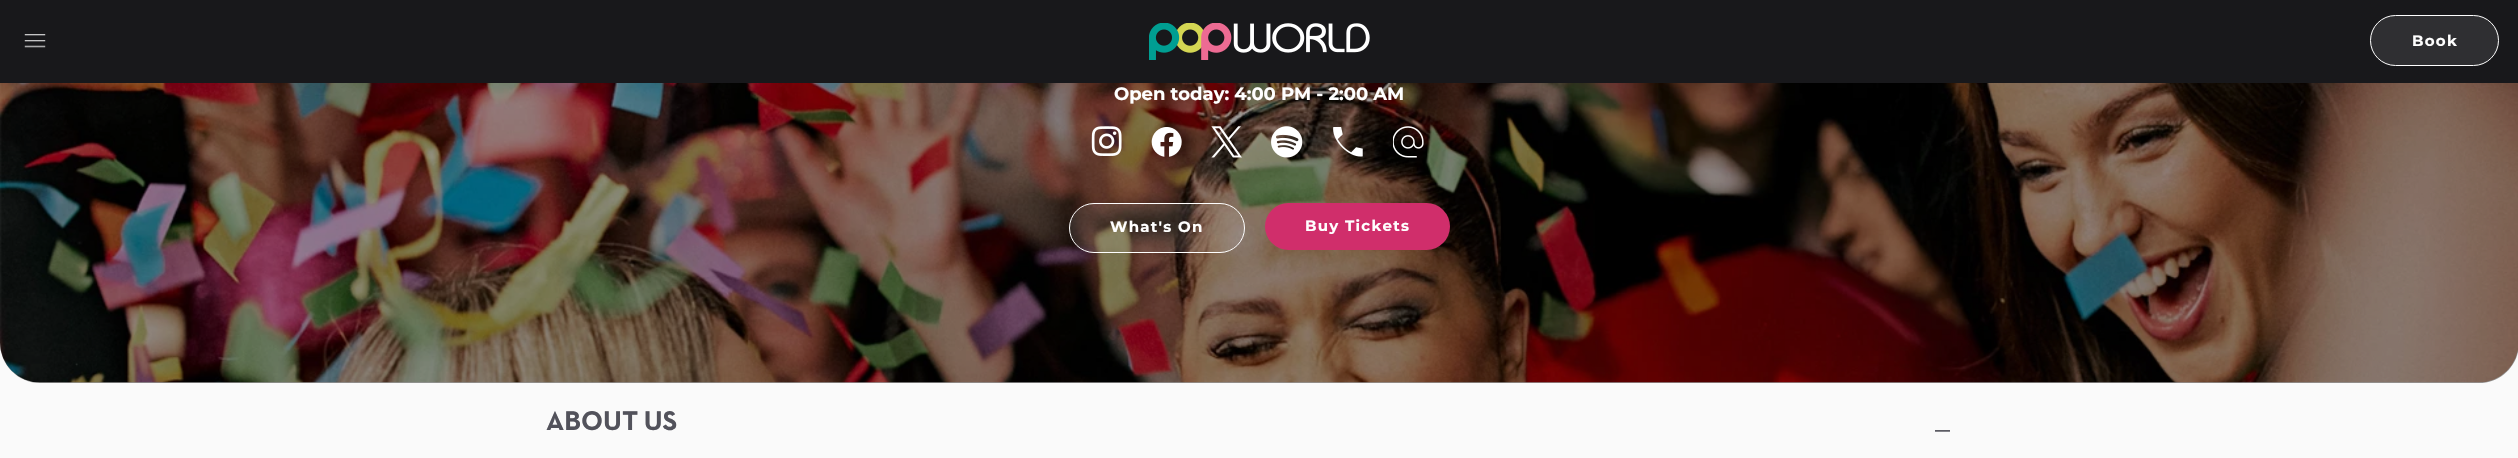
void draw(SkCanvas* c) {
SkPaint p;
p.setAntiAlias(true);
auto F=[&](const char* family, int weight, float size, bool italic = false){SkFontStyle style(weight, SkFontStyle::kNormal_Width,italic ? SkFontStyle::kItalic_Slant : SkFontStyle::kUpright_Slant);SkFont result(fontMgr->matchFamilyStyle(family, style), size);result.setSubpixel(true);return result;};
auto T=[&](const char* s, float x, float y, const SkFont& font){c->drawString(s, x, y, font, p);};
auto L=[&](const char* s, float x, float y, const SkFont& font, const SkPaint& ink, float letter, float word){std::vector<SkGlyphID> glyphs(font.countText(s, strlen(s), SkTextEncoding::kUTF8));std::vector<float> xs(glyphs.size());font.textToGlyphs(s, strlen(s), SkTextEncoding::kUTF8, glyphs);font.getXPos(glyphs, xs, x);float extra = 0;for (size_t i = 0; i < glyphs.size(); i++) {xs[i] += extra;extra += letter + word * (glyphs[i] == font.unicharToGlyph(' '));}c->drawTextBlob(SkTextBlob::MakeFromPosHGlyphs(glyphs, xs, y, font), 0, 0, ink);};
auto R=[&](float x, float y, float w, float h){c->drawRect(SkRect::MakeXYWH(x, y, w, h), p);};
auto Q=[&](float x, float y, float w, float h, float radius){c->drawRoundRect(SkRect::MakeXYWH(x, y, w, h), radius, radius, p);};
auto I=[&](const char* path, float x, float y, float w, float h){auto image = SkImages::DeferredFromEncodedData(SkData::MakeFromFileName(path));c->drawImageRect(image, SkRect::MakeXYWH(x, y, w, h), SkSamplingOptions());};
auto P=[&](const char* data, bool evenOdd = false){SkPath result = *SkParsePath::FromSVGString(data);if (evenOdd) result.setFillType(SkPathFillType::kEvenOdd);return result;};
c->clear(0xfffafafa);
p.setColor(0xff18181b);
R(0,0,2518,83);
I("1.png",24,34,22,14);
I("2.png",1149,23,221,37);
p.setColor(0xff2f2f32);
c->drawRoundRect(SkRect::MakeXYWH(2370.5,15.5,128,50),25,25,p);
p.setStroke(true);
p.setStrokeWidth(1);
p.setColor(0xffffffff);
c->drawRoundRect(SkRect::MakeXYWH(2370.5,15.5,128,50),25,25,p);
auto f1 = F("Montserrat",700,15);
p.setStroke(false);
L("Book",2412,46,f1,p,1.25,0);
I("3.png",0,83,2518,300);
p.setColor(0x66000000);
c->drawPath(P("M0 83h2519v260c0 22-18 40-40 40h-2439c-22 0-40-18-40-40z"),p);
auto f2 = F("Montserrat",700,18);
p.setColor(0xffffffff);
T("Open today: 4:00 PM - 2:00 AM",1114,100,f2);
I("4.png",1091,126,31,30);
I("5.png",1151,127,31,30);
I("6.png",1211,126,31,32);
I("7.png",1271,126,32,32);
I("8.png",1333,127,30,30);
I("9.png",1393,126,31,32);
p.setColor(0x1affffff);
c->drawRoundRect(SkRect::MakeXYWH(1069.5,203.5,175,49),24.5,24.5,p);
p.setStroke(true);
p.setColor(0xffffffff);
c->drawRoundRect(SkRect::MakeXYWH(1069.5,203.5,175,49),24.5,24.5,p);
p.setStroke(false);
L("What's On",1110,232,f1,p,1.25,0);
p.setColor(0xffd02e6b);
Q(1265,203,185,47,23.5);
p.setColor(0xffffffff);
L("Buy Tickets",1305,231,f1,p,1.25,0);
auto f3 = F("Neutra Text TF",700,27.5);
p.setColor(0xff52525b);
T("ABOUT US",546,430,f3);
auto f4 = F("Montserrat",400,30);
T("–",1935,439,f4);
}
